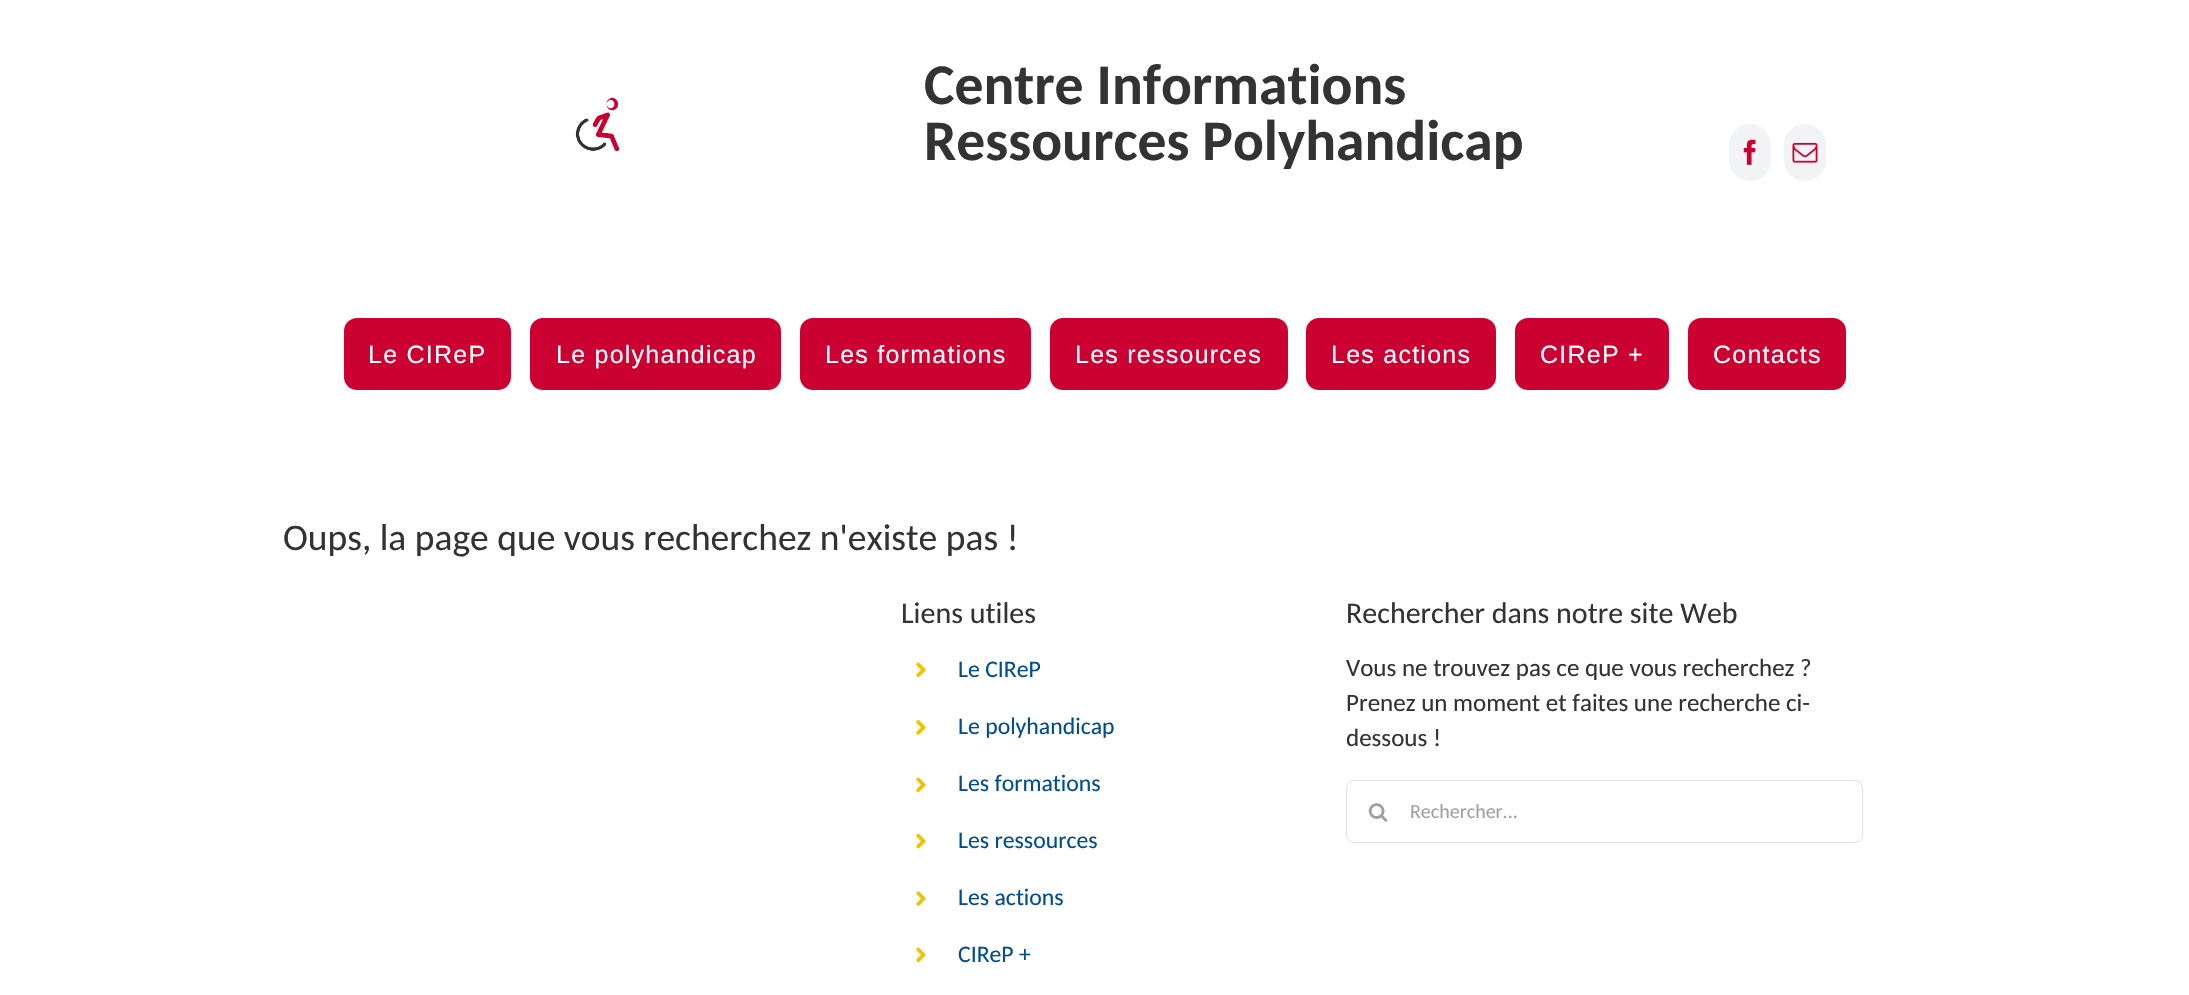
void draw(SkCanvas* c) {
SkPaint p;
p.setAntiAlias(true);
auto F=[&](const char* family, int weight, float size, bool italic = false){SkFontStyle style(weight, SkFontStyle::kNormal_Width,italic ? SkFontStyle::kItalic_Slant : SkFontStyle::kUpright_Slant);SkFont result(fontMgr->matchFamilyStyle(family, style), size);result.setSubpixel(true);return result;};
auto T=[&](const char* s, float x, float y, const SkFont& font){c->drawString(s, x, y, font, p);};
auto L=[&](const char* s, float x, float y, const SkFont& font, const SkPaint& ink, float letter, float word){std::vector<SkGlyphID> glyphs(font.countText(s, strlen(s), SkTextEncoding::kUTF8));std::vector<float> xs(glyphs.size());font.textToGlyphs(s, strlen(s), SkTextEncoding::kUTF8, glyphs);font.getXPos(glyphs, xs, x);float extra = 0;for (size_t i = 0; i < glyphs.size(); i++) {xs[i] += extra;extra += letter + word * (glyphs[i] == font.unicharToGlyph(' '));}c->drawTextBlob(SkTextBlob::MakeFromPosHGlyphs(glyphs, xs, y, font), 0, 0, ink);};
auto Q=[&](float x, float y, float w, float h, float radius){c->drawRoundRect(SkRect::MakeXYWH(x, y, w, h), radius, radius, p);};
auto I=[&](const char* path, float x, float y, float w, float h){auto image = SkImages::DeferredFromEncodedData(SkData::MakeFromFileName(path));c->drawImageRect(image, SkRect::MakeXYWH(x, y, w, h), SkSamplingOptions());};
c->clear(0xffffffff);
I("1.png",575,97,45,55);
auto f1 = F("Carlito",700,57.5);
p.setColor(0xff333333);
T("Centre Informations",924,104,f1);
T("Ressources Polyhandicap",924,160,f1);
p.setColor(0xfff2f3f5);
c->drawRoundRect(SkRect::MakeXYWH(1732,127,36,51),18,18,p);
p.setStroke(true);
p.setStrokeWidth(6);
c->drawRoundRect(SkRect::MakeXYWH(1732,127,36,51),18,18,p);
I("2.png",1743,139,13,26);
p.setStroke(false);
c->drawRoundRect(SkRect::MakeXYWH(1787,127,36,51),18,18,p);
p.setStroke(true);
c->drawRoundRect(SkRect::MakeXYWH(1787,127,36,51),18,18,p);
I("3.png",1792,142,26,21);
p.setStroke(false);
p.setColor(0xffca0131);
Q(344,318,167,72,13);
auto f2 = F("Liberation Sans",400,25);
p.setColor(0xffffffff);
L("Le CIReP",368,363,f2,p,1.25,0);
p.setColor(0xffca0131);
Q(530,318,251,72,13);
p.setColor(0xffffffff);
L("Le polyhandicap",556,363,f2,p,1.25,0);
p.setColor(0xffca0131);
Q(800,318,231,72,13);
p.setColor(0xffffffff);
L("Les formations",825,363,f2,p,1.25,0);
p.setColor(0xffca0131);
Q(1050,318,238,72,13);
p.setColor(0xffffffff);
L("Les ressources",1075,363,f2,p,1.25,0);
p.setColor(0xffca0131);
Q(1306,318,190,72,13);
p.setColor(0xffffffff);
L("Les actions",1331,363,f2,p,1.25,0);
p.setColor(0xffca0131);
Q(1515,318,154,72,13);
p.setColor(0xffffffff);
L("CIReP +",1540,363,f2,p,1.25,0);
p.setColor(0xffca0131);
Q(1688,318,158,72,13);
p.setColor(0xffffffff);
L("Contacts",1713,363,f2,p,1.25,0);
auto f3 = F("Carlito",400,37.5);
p.setColor(0xff333333);
T("Oups, la page que vous recherchez n'existe pas !",283,550,f3);
auto f4 = F("Carlito",400,30);
T("Liens utiles",901,623,f4);
I("4.png",916,662,10,16);
auto f5 = F("Carlito",400,23.75);
p.setColor(0xff004e8e);
T("Le CIReP",958,677,f5);
I("5.png",916,719,10,16);
T("Le polyhandicap",958,734,f5);
I("4.png",916,777,10,16);
T("Les formations",958,791,f5);
I("6.png",916,833,10,16);
T("Les ressources",958,848,f5);
I("7.png",916,891,10,15);
T("Les actions",958,905,f5);
I("4.png",916,947,10,16);
T("CIReP +",958,962,f5);
p.setColor(0xff333333);
T("Rechercher dans notre site Web",1346,623,f4);
auto f6 = F("Carlito",400,25);
T("Vous ne trouvez pas ce que vous recherchez ?",1346,676,f6);
T("Prenez un moment et faites une recherche ci-",1346,711,f6);
T("dessous !",1346,746,f6);
p.setStroke(true);
p.setStrokeWidth(1);
p.setColor(0xffe2e2e2);
c->drawRoundRect(SkRect::MakeXYWH(1346.5,780.5,516,62),7.5,7.5,p);
I("8.png",1368,803,20,19);
auto f7 = F("Carlito",400,20);
p.setStroke(false);
p.setColor(0xff9ea0a4);
T("Rechercher...",1410,818,f7);
}
